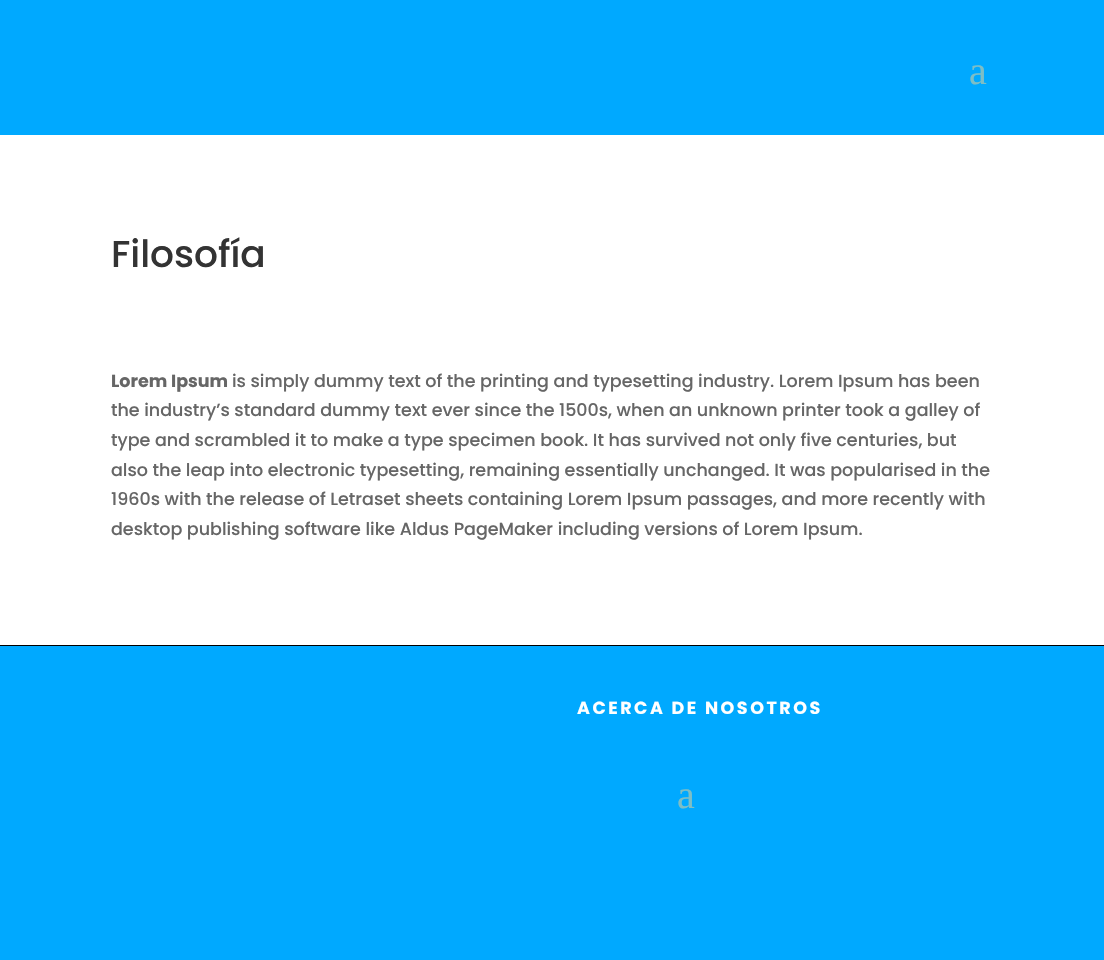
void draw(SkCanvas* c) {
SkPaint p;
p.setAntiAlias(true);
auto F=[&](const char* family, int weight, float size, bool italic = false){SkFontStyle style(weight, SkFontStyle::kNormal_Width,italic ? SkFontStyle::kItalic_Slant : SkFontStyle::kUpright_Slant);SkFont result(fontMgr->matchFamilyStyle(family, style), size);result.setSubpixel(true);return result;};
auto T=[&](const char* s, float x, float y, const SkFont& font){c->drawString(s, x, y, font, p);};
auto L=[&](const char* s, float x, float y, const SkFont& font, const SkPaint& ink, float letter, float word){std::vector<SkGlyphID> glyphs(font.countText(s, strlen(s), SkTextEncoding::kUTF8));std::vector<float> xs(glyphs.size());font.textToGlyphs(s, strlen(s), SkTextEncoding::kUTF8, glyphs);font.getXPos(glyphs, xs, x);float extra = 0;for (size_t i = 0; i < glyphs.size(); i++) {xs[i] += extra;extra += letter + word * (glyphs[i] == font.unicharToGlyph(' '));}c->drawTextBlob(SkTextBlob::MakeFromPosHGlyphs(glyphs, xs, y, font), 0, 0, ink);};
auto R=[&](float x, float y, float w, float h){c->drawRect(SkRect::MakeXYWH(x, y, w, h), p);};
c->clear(0xffffffff);
p.setColor(0xff00a9ff);
R(0,0,1104,135);
auto f1 = F("Liberation Serif",400,40);
p.setColor(0xff7ebec5);
T("a",969,84,f1);
auto f2 = F("Poppins",500,37.5);
p.setColor(0xff333333);
T("Filosofía",111,267,f2);
auto f3 = F("Poppins",700,17.5);
p.setColor(0xff666666);
T("Lorem Ipsum",111,387,f3);
auto f4 = F("Poppins",500,17.5);
T("is simply dummy text of the printing and typesetting industry. Lorem Ipsum has been",232,387,f4);
T("the industry’s standard dummy text ever since the 1500s, when an unknown printer took a galley of",111,416,f4);
T("type and scrambled it to make a type specimen book. It has survived not only five centuries, but",111,446,f4);
T("also the leap into electronic typesetting, remaining essentially unchanged. It was popularised in the",111,476,f4);
T("1960s with the release of Letraset sheets containing Lorem Ipsum passages, and more recently with",111,505,f4);
T("desktop publishing software like Aldus PageMaker including versions of Lorem Ipsum.",111,535,f4);
p.setColor(0xff00a9ff);
R(0,646,1104,314);
p.setColor(0xff000000);
R(0,645,1104,1);
p.setColor(0xffffffff);
L("ACERCA DE NOSOTROS",577,714,f3,p,2.5,0);
p.setColor(0xff7ebec5);
T("a",677,808,f1);
}
